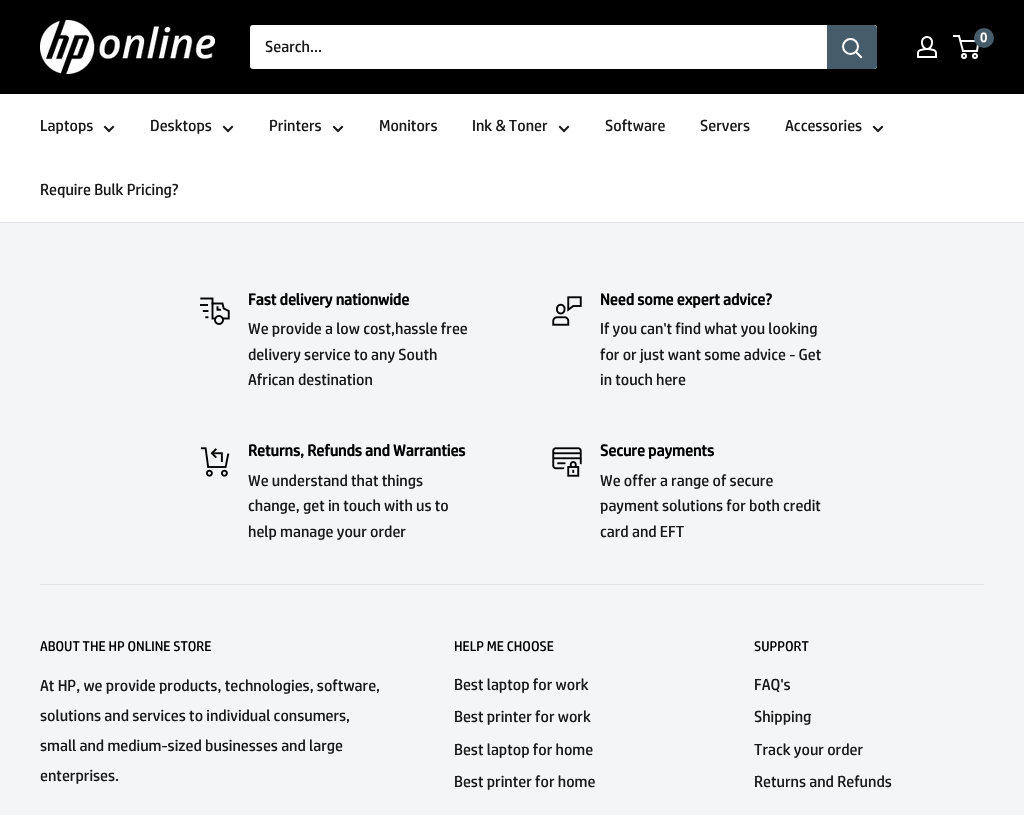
void draw(SkCanvas* c) {
SkPaint p;
p.setAntiAlias(true);
auto F=[&](const char* family, int weight, float size, bool italic = false){SkFontStyle style(weight, SkFontStyle::kNormal_Width,italic ? SkFontStyle::kItalic_Slant : SkFontStyle::kUpright_Slant);SkFont result(fontMgr->matchFamilyStyle(family, style), size);result.setSubpixel(true);return result;};
auto T=[&](const char* s, float x, float y, const SkFont& font){c->drawString(s, x, y, font, p);};
auto R=[&](float x, float y, float w, float h){c->drawRect(SkRect::MakeXYWH(x, y, w, h), p);};
auto Q=[&](float x, float y, float w, float h, float radius){c->drawRoundRect(SkRect::MakeXYWH(x, y, w, h), radius, radius, p);};
auto I=[&](const char* path, float x, float y, float w, float h){auto image = SkImages::DeferredFromEncodedData(SkData::MakeFromFileName(path));c->drawImageRect(image, SkRect::MakeXYWH(x, y, w, h), SkSamplingOptions());};
auto P=[&](const char* data, bool evenOdd = false){SkPath result = *SkParsePath::FromSVGString(data);if (evenOdd) result.setFillType(SkPathFillType::kEvenOdd);return result;};
c->clear(0xfff3f5f6);
p.setColor(0xff000000);
R(0,0,1024,94);
I("1.png",40,20,175,54);
I("2.png",917,36,20,22);
p.setStroke(true);
p.setStrokeWidth(2);
p.setColor(0xffffffff);
c->drawCircle(964,56,2,p);
c->drawCircle(975,56,2,p);
c->drawPath(P("M960.5 41h18l-1.5 10h-14l-4-15h-6"),p);
p.setStroke(false);
p.setColor(0xff465c6a);
c->drawCircle(984,38,10,p);
auto f1 = F("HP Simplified",700,13);
p.setColor(0xffffffff);
T("0",980,42,f1);
Q(250,25,627,44,3);
auto f2 = F("HP Simplified",400,16);
p.setColor(0xff191919);
T("Search...",265,52,f2);
p.setColor(0xff465c6a);
c->drawPath(P("M827 25h47c1.5 0 3 1.5 3 3v38c0 1.5-1.5 3-3 3h-47z"),p);
p.setStroke(true);
p.setStrokeCap(SkPaint::kSquare_Cap);
p.setColor(0xffffffff);
c->drawPath(P("M861 57l-5-5"),p);
p.setStrokeCap(SkPaint::kButt_Cap);
c->drawCircle(850.5,46.5,7.5,p);
p.setStroke(false);
R(0,94,1024,128);
p.setColor(0xffe1e3e4);
R(0,222,1024,1);
p.setColor(0xff191919);
T("Laptops",40,131,f2);
p.setStroke(true);
p.setStrokeCap(SkPaint::kSquare_Cap);
c->drawPath(P("M113 127l-4 4l-4-4"),p);
p.setStroke(false);
T("Desktops",150,131,f2);
p.setStroke(true);
c->drawPath(P("M232 127l-4 4l-4-4"),p);
p.setStroke(false);
T("Printers",269,131,f2);
p.setStroke(true);
c->drawPath(P("M342 127l-4 4l-4-4"),p);
p.setStroke(false);
T("Monitors",379,131,f2);
T("Ink & Toner",472,131,f2);
p.setStroke(true);
c->drawPath(P("M568 127l-4 4l-4-4"),p);
p.setStroke(false);
T("Software",605,131,f2);
T("Servers",700,131,f2);
T("Accessories",785,131,f2);
p.setStroke(true);
c->drawPath(P("M882 127l-4 4l-4-4"),p);
p.setStroke(false);
T("Require Bulk Pricing?",40,195,f2);
I("3.png",200,297,30,28);
auto f3 = F("HP Simplified",700,16);
p.setColor(0xff000000);
T("Fast delivery nationwide",248,305,f3);
p.setColor(0xff191919);
T("We provide a low cost,hassle free",248,334,f2);
T("delivery service to any South",248,360,f2);
T("African destination",248,385,f2);
I("4.png",552,296,30,30);
p.setColor(0xff000000);
T("Need some expert advice?",600,305,f3);
p.setColor(0xff191919);
T("If you can't find what you looking",600,334,f2);
T("for or just want some advice - Get",600,360,f2);
T("in touch here",600,385,f2);
I("5.png",200,447,30,30);
p.setColor(0xff000000);
T("Returns, Refunds and Warranties",248,456,f3);
p.setColor(0xff191919);
T("We understand that things",248,486,f2);
T("change, get in touch with us to",248,511,f2);
T("help manage your order",248,537,f2);
I("6.png",552,447,30,30);
p.setColor(0xff000000);
T("Secure payments",600,456,f3);
p.setColor(0xff191919);
T("We offer a range of secure",600,486,f2);
T("payment solutions for both credit",600,511,f2);
T("card and EFT",600,537,f2);
p.setColor(0xffe1e3e4);
R(40,584,944,1);
auto f4 = F("HP Simplified",400,14);
p.setColor(0xff000000);
T("ABOUT THE HP ONLINE STORE",40,651,f4);
p.setColor(0xff191919);
T("At HP, we provide products, technologies, software,",40,691,f2);
T("solutions and services to individual consumers,",40,721,f2);
T("small and medium-sized businesses and large",40,751,f2);
T("enterprises.",40,781,f2);
p.setColor(0xff000000);
T("HELP ME CHOOSE",454,651,f4);
p.setColor(0xff191919);
T("Best laptop for work",454,690,f2);
T("Best printer for work",454,722,f2);
T("Best laptop for home",454,755,f2);
T("Best printer for home",454,787,f2);
p.setColor(0xff000000);
T("SUPPORT",754,651,f4);
p.setColor(0xff191919);
T("FAQ's",754,690,f2);
T("Shipping",754,722,f2);
T("Track your order",754,755,f2);
T("Returns and Refunds",754,787,f2);
}
